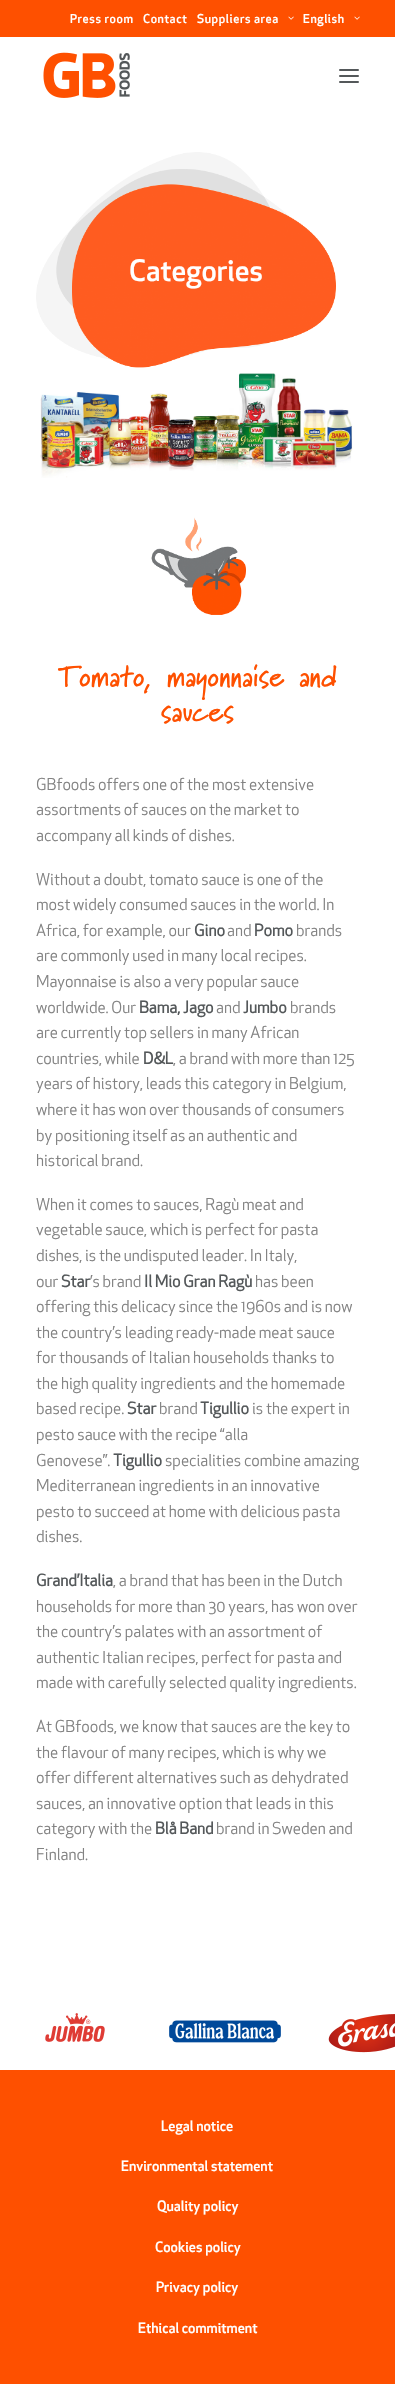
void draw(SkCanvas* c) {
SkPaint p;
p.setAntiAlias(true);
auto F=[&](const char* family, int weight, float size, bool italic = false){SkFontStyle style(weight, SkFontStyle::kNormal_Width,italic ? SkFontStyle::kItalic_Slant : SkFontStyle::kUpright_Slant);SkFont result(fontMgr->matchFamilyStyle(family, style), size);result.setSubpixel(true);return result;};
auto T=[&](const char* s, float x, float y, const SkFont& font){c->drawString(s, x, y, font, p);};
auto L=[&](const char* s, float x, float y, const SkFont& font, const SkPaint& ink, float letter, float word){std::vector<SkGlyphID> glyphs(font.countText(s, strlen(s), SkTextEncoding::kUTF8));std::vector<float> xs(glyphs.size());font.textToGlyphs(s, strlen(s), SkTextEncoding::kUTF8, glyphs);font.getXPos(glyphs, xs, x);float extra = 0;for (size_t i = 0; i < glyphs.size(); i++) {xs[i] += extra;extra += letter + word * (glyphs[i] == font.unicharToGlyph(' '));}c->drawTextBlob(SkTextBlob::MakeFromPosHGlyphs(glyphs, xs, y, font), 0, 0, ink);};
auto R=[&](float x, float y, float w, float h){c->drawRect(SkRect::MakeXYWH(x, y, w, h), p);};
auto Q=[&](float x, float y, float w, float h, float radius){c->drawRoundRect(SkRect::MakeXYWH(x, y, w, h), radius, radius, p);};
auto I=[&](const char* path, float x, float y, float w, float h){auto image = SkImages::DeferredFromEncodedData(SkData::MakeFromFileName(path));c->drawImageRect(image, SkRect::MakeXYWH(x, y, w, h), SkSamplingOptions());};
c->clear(0xffffffff);
p.setColor(0xfffe5000);
R(0,0,395,37);
auto f1 = F("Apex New",500,12);
p.setColor(0xffffffff);
L("Press room",70,23,f1,p,.6,0);
L("Contact",143,23,f1,p,.6,0);
L("Suppliers area",197,23,f1,p,.6,0);
I("1.png",288,16,6,4);
L("English",303,23,f1,p,.6,0);
I("1.png",354,16,6,4);
I("2.png",43,52,87,46);
p.setColor(0xff54585a);
Q(339,75,20,2,1);
Q(339,69,20,2,1);
Q(339,81,20,2,1);
I("3.png",36,152,300,216);
auto f2 = F("Apex New",500,29);
p.setColor(0xffffffff);
T("Categories",129,281,f2);
I("4.png",40,373,313,105);
I("5.png",151,517,95,98);
auto f3 = F("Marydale",700,29);
p.setColor(0xfffe5000);
T("Tomato, mayonnaise and",59,686,f3);
T("sauces",161,721,f3);
auto f4 = F("Apex New",400,16);
p.setColor(0xff828282);
T("GBfoods offers one of the most extensive",36,790,f4);
T("assortments of sauces on the market to",36,815,f4);
T("accompany all kinds of dishes.",36,841,f4);
T("Without a doubt, tomato sauce is one of the",36,885,f4);
T("most widely consumed sauces in the world. In",36,910,f4);
T("Africa, for example, our",36,936,f4);
auto f5 = F("Apex New",700,16);
p.setColor(0xff54585a);
T("Gino",194,936,f5);
p.setColor(0xff828282);
T("and",227,936,f4);
p.setColor(0xff54585a);
T("Pomo",254,936,f5);
p.setColor(0xff828282);
T("brands",296,936,f4);
T("are commonly used in many local recipes.",36,961,f4);
T("Mayonnaise is also a very popular sauce",36,987,f4);
T("worldwide. Our",36,1013,f4);
p.setColor(0xff54585a);
T("Bama, Jago",139,1013,f5);
p.setColor(0xff828282);
T("and",216,1013,f4);
p.setColor(0xff54585a);
T("Jumbo",243,1013,f5);
p.setColor(0xff828282);
T("brands",290,1013,f4);
T("are currently top sellers in many African",36,1038,f4);
T("countries, while",36,1064,f4);
p.setColor(0xff54585a);
T("D&L",143,1064,f5);
p.setColor(0xff828282);
T(", a brand with more than 125",173,1064,f4);
T("years of history, leads this category in Belgium,",36,1089,f4);
T("where it has won over thousands of consumers",36,1115,f4);
T("by positioning itself as an authentic and",36,1141,f4);
T("historical brand.",36,1166,f4);
T("When it comes to sauces, Ragù meat and",36,1210,f4);
T("vegetable sauce, which is perfect for pasta",36,1235,f4);
T("dishes, is the undisputed leader. In Italy,",36,1261,f4);
T("our",36,1287,f4);
p.setColor(0xff54585a);
T("Star",61,1287,f5);
p.setColor(0xff828282);
T("’s brand",90,1287,f4);
p.setColor(0xff54585a);
T("Il Mio Gran Ragù",144,1287,f5);
p.setColor(0xff828282);
T("has been",255,1287,f4);
T("offering this delicacy since the 1960s and is now",36,1312,f4);
T("the country’s leading ready-made meat sauce",36,1338,f4);
T("for thousands of Italian households thanks to",36,1363,f4);
T("the high quality ingredients and the homemade",36,1389,f4);
T("based recipe.",36,1414,f4);
p.setColor(0xff54585a);
T("Star",127,1414,f5);
p.setColor(0xff828282);
T("brand",159,1414,f4);
p.setColor(0xff54585a);
T("Tigullio",200,1414,f5);
p.setColor(0xff828282);
T("is the expert in",252,1414,f4);
T("pesto sauce with the recipe “alla",36,1440,f4);
T("Genovese”.",36,1466,f4);
p.setColor(0xff54585a);
T("Tigullio",113,1466,f5);
p.setColor(0xff828282);
T("specialities combine amazing",165,1466,f4);
T("Mediterranean ingredients in an innovative",36,1491,f4);
T("pesto to succeed at home with delicious pasta",36,1517,f4);
T("dishes.",36,1542,f4);
p.setColor(0xff54585a);
T("Grand’Italia",36,1586,f5);
p.setColor(0xff828282);
T(", a brand that has been in the Dutch",113,1586,f4);
T("households for more than 30 years, has won over",36,1612,f4);
T("the country’s palates with an assortment of",36,1637,f4);
T("authentic Italian recipes, perfect for pasta and",36,1663,f4);
T("made with carefully selected quality ingredients.",36,1688,f4);
T("At GBfoods, we know that sauces are the key to",36,1732,f4);
T("the flavour of many recipes, which is why we",36,1758,f4);
T("offer different alternatives such as dehydrated",36,1783,f4);
T("sauces, an innovative option that leads in this",36,1809,f4);
T("category with the",36,1834,f4);
p.setColor(0xff54585a);
T("Blå Band",155,1834,f5);
p.setColor(0xff828282);
T("brand in Sweden and",216,1834,f4);
T("Finland.",36,1860,f4);
I("6.png",45,2013,60,29);
I("7.png",169,2020,112,23);
I("8.png",328,2014,67,39);
p.setColor(0xfffe5000);
R(0,2070,395,314);
auto f6 = F("Apex New",500,14);
p.setColor(0xffffffff);
T("Legal notice",161,2131,f6);
T("Environmental statement",121,2171,f6);
T("Quality policy",157,2211,f6);
T("Cookies policy",155,2252,f6);
T("Privacy policy",156,2292,f6);
T("Ethical commitment",138,2333,f6);
}
